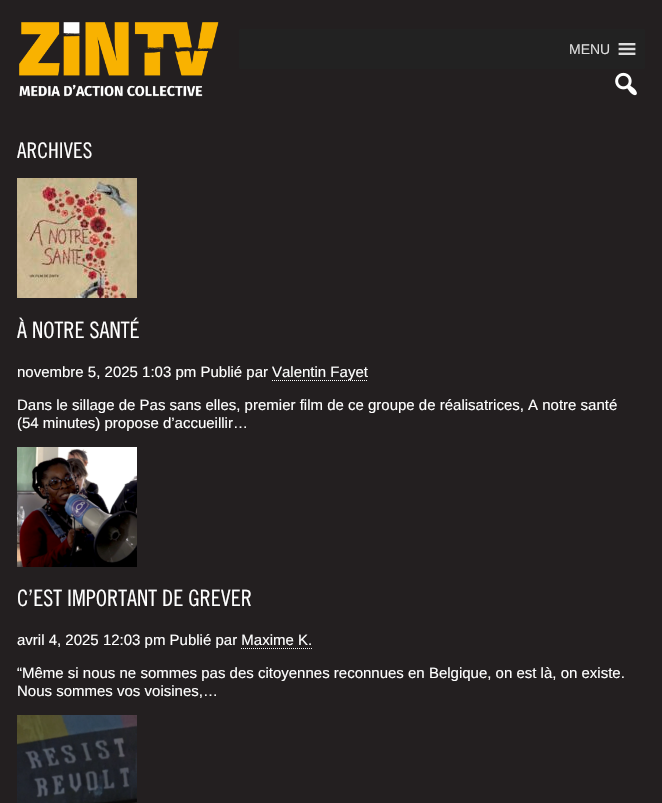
void draw(SkCanvas* c) {
SkPaint p;
p.setAntiAlias(true);
auto F=[&](const char* family, int weight, float size, bool italic = false){SkFontStyle style(weight, SkFontStyle::kNormal_Width,italic ? SkFontStyle::kItalic_Slant : SkFontStyle::kUpright_Slant);SkFont result(fontMgr->matchFamilyStyle(family, style), size);result.setSubpixel(true);return result;};
auto T=[&](const char* s, float x, float y, const SkFont& font){c->drawString(s, x, y, font, p);};
auto Q=[&](float x, float y, float w, float h, float radius){c->drawRoundRect(SkRect::MakeXYWH(x, y, w, h), radius, radius, p);};
auto I=[&](const char* path, float x, float y, float w, float h){auto image = SkImages::DeferredFromEncodedData(SkData::MakeFromFileName(path));c->drawImageRect(image, SkRect::MakeXYWH(x, y, w, h), SkSamplingOptions());};
auto P=[&](const char* data, bool evenOdd = false){SkPath result = *SkParsePath::FromSVGString(data);if (evenOdd) result.setFillType(SkPathFillType::kEvenOdd);return result;};
c->clear(0xff231f20);
I("1.png",19,22,200,75);
p.setColor(0xff222222);
Q(239,29,406,40,2);
auto f1 = F("Liberation Sans",400,14);
p.setColor(0xffdddddd);
T("MENU",569,54,f1);
I("2.png",618,43,18,12);
I("3.png",615,72,22,24);
auto f2 = F("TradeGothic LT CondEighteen",500,21.5);
p.setColor(0xffffffff);
T("ARCHIVES",17,158,f2);
I("4.png",17,178,120,120);
auto f3 = F("TradeGothic LT CondEighteen",500,22.5);
T("À NOTRE SANTÉ",17,338,f3);
auto f4 = F("Liberation Sans",400,15);
T("novembre 5, 2025 1:03 pm Publié par",17,377,f4);
p.setStroke(true);
p.setStrokeWidth(1);
p.setPathEffect(SkDashPathEffect::Make({{1,1}}, 0));
c->drawPath(P("M272 380.5h96"),p);
p.setPathEffect(nullptr);
p.setStroke(false);
T("Valentin Fayet",272,377,f4);
T("Dans le sillage de Pas sans elles, premier film de ce groupe de réalisatrices, A notre santé",17,410,f4);
T("(54 minutes) propose d’accueillir…",17,428,f4);
I("5.png",17,447,120,120);
T("C’EST IMPORTANT DE GREVER",17,606,f3);
T("avril 4, 2025 12:03 pm Publié par Maxime K.",17,645,f4);
p.setStroke(true);
p.setPathEffect(SkDashPathEffect::Make({{1,1}}, 0));
c->drawPath(P("M241 648.5h71"),p);
p.setPathEffect(nullptr);
p.setStroke(false);
T("“Même si nous ne sommes pas des citoyennes reconnues en Belgique, on est là, on existe.",17,678,f4);
T("Nous sommes vos voisines,…",17,696,f4);
I("6.png",17,715,120,88);
}
